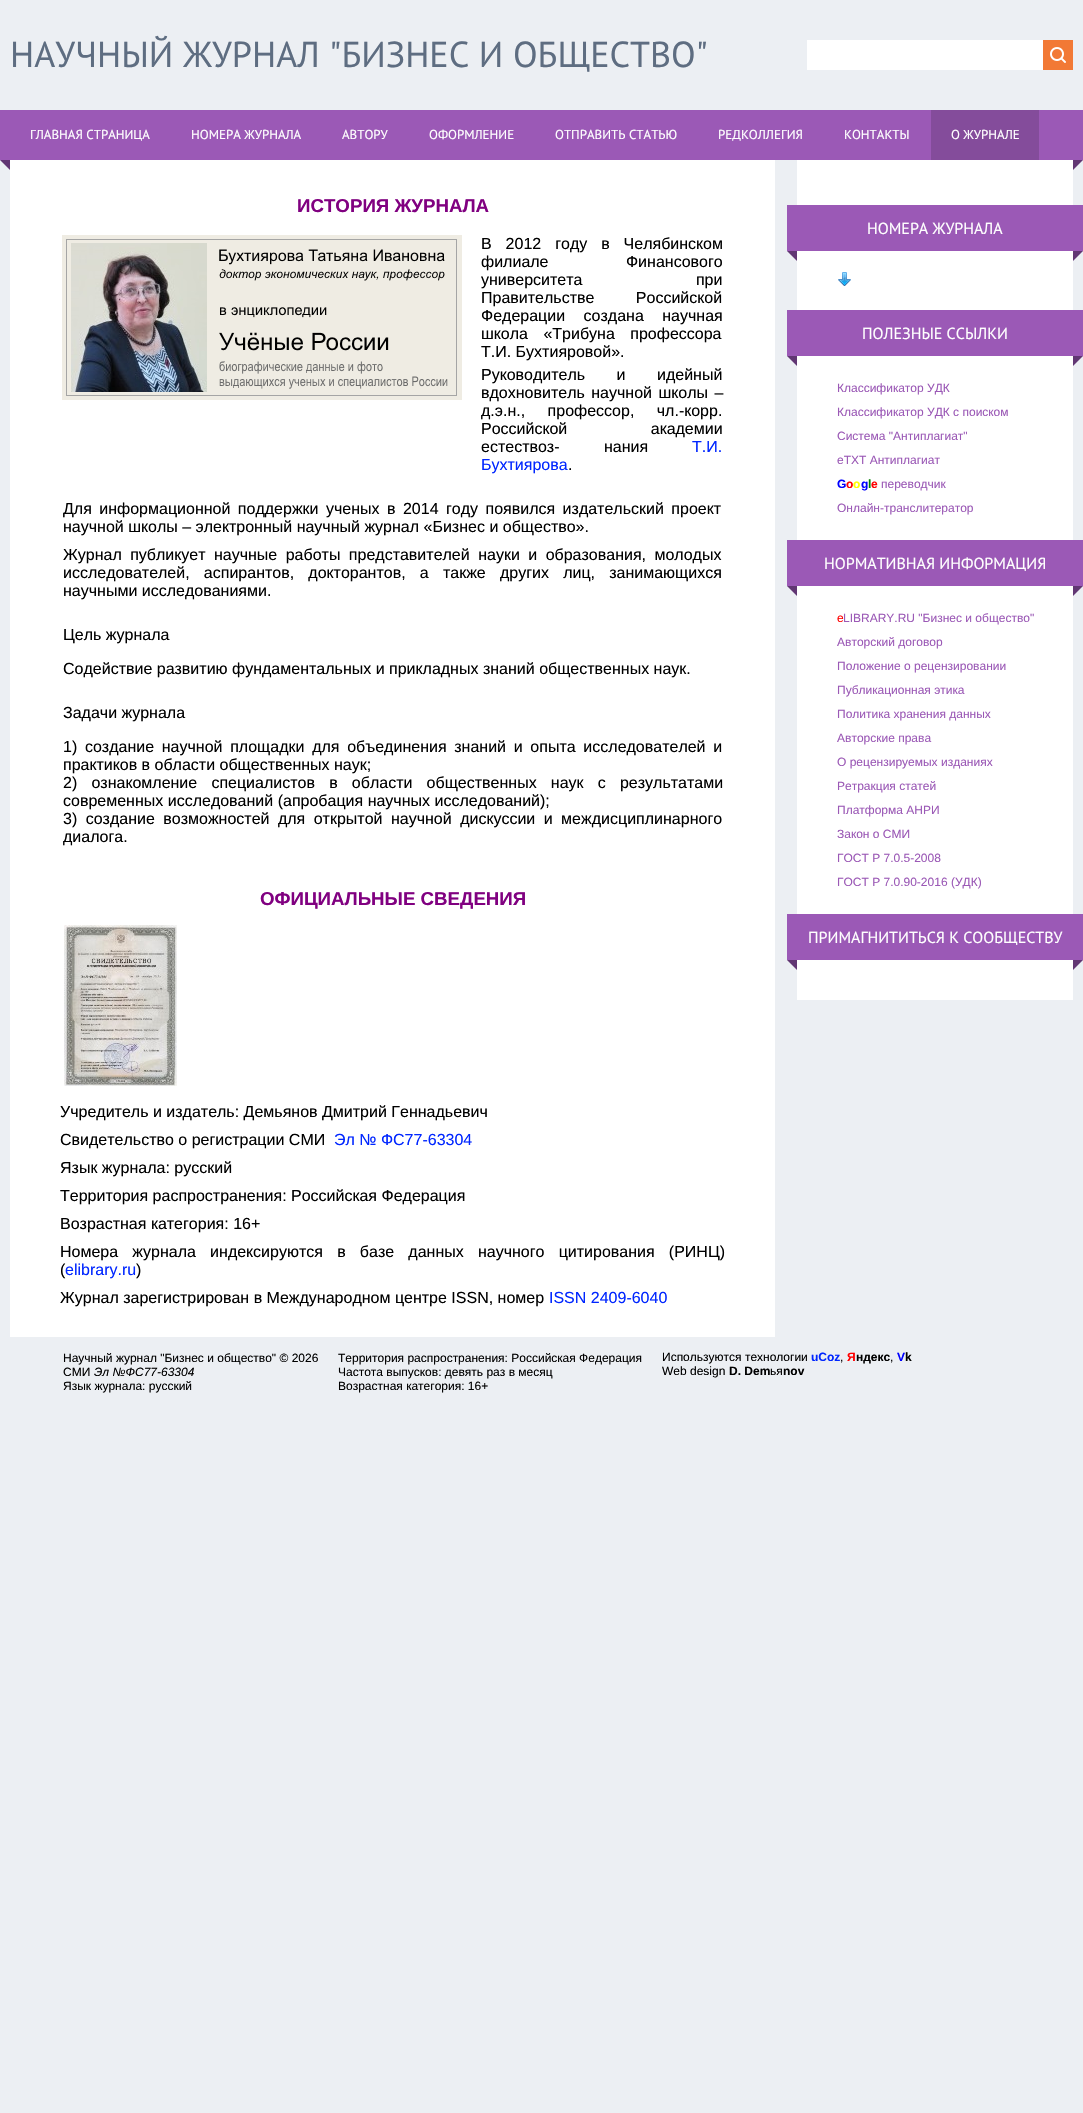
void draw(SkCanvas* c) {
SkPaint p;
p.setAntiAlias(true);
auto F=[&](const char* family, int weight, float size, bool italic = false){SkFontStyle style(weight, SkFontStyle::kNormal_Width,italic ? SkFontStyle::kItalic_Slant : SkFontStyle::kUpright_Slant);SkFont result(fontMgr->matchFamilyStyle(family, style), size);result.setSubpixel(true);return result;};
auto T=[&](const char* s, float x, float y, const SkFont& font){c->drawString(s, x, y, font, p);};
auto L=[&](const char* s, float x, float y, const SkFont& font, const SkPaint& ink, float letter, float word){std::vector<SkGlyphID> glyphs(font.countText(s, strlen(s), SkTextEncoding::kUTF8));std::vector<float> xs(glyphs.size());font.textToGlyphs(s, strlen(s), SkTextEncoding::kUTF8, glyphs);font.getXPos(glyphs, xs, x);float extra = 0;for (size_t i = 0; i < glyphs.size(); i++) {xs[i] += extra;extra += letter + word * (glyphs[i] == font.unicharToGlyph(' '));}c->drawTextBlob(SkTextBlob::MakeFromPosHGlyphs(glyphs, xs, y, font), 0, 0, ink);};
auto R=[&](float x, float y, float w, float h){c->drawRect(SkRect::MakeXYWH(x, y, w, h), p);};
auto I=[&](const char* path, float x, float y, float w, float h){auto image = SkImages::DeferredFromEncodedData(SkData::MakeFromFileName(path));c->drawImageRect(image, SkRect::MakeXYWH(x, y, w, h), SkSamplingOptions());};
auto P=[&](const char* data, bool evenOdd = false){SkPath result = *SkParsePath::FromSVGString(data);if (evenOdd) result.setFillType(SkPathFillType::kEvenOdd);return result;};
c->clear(0xffeceff3);
auto f1 = F("PT Sans",400,36);
p.setColor(0xff5e6d81);
T("НАУЧНЫЙ ЖУРНАЛ \"БИЗНЕС И ОБЩЕСТВО\"",10,67,f1);
p.setColor(0xffffffff);
R(807,40,236,30);
p.setColor(0xfff27935);
R(1043,40,30,30);
I("1.png",1050,47,16,16);
p.setColor(0xff9b59b6);
R(0,110,1083,50);
auto f2 = F("PT Sans",400,13);
p.setColor(0xffffffff);
T("ГЛАВНАЯ СТРАНИЦА",30,139,f2);
T("НОМЕРА ЖУРНАЛА",191,139,f2);
T("АВТОРУ",342,139,f2);
T("ОФОРМЛЕНИЕ",429,139,f2);
T("ОТПРАВИТЬ СТАТЬЮ",555,139,f2);
T("РЕДКОЛЛЕГИЯ",718,139,f2);
T("КОНТАКТЫ",844,139,f2);
p.setColor(0xff844c9b);
R(931,110,108,50);
p.setColor(0xffffffff);
T("О ЖУРНАЛЕ",951,139,f2);
p.setColor(0xff613673);
c->drawPath(P("M0 160h10v10z"),p);
c->drawPath(P("M1073 160h10l-10 10z"),p);
p.setColor(0xffffffff);
R(10,160,765,1177);
auto f3 = F("Liberation Sans",700,18.7);
p.setColor(0xff800080);
T("ИСТОРИЯ ЖУРНАЛА",297,212,f3);
I("2.png",62,235,400,165);
auto f4 = F("Liberation Sans",400,16);
p.setColor(0xff000000);
L("В 2012 году в Челябинском",481,249,f4,p,0,9.5);
L("филиале Финансового",481,267,f4,p,0,73);
L("университета при",481,285,f4,p,0,109);
L("Правительстве Российской",481,303,f4,p,0,37);
L("Федерации создана научная",481,321,f4,p,0,14);
L("школа «Трибуна профессора",481,339,f4,p,0,11);
T("Т.И. Бухтияровой».",481,357,f4);
L("Руководитель и идейный",481,380,f4,p,0,27);
L("вдохновитель научной школы –",481,398,f4,p,0,2);
L("д.э.н., профессор, чл.-корр.",481,416,f4,p,0,18);
L("Российской академии",481,434,f4,p,0,79);
L("естествоз- нания",481,452,f4,p,0,40);
p.setColor(0xff0026ff);
T("Т.И.",692,452,f4);
T("Бухтиярова",481,470,f4);
p.setColor(0xff000000);
T(".",568,470,f4);
L("Для информационной поддержки ученых в 2014 году появился издательский проект",63,514,f4,p,0,3);
T("научной школы – электронный научный журнал «Бизнес и общество».",63,532,f4);
L("Журнал публикует научные работы представителей науки и образования, молодых",63,560,f4,p,0,4);
L("исследователей, аспирантов, докторантов, а также других лиц, занимающихся",63,578,f4,p,0,9.75);
T("научными исследованиями.",63,596,f4);
T("Цель журнала",63,640,f4);
T("Содействие развитию фундаментальных и прикладных знаний общественных наук.",63,674,f4);
T("Задачи журнала",63,718,f4);
L("1) создание научной площадки для объединения знаний и опыта исследователей и",63,752,f4,p,0,3.25);
T("практиков в области общественных наук;",63,770,f4);
L("2) ознакомление специалистов в области общественных наук с результатами",63,788,f4,p,0,9.75);
T("современных исследований (апробация научных исследований);",63,806,f4);
L("3) создание возможностей для открытой научной дискуссии и междисциплинарного",63,824,f4,p,0,4);
T("диалога.",63,842,f4);
p.setColor(0xff800080);
T("ОФИЦИАЛЬНЫЕ СВЕДЕНИЯ",260,905,f3);
I("3.png",64,925,113,161);
p.setColor(0xff000000);
T("Учредитель и издатель: Демьянов Дмитрий Геннадьевич",60,1117,f4);
T("Свидетельство о регистрации СМИ",60,1145,f4);
p.setColor(0xff0026ff);
T("Эл № ФС77-63304",334,1145,f4);
p.setColor(0xff000000);
T("Язык журнала: русский",60,1173,f4);
T("Территория распространения: Российская Федерация",60,1201,f4);
T("Возрастная категория: 16+",60,1229,f4);
L("Номера журнала индексируются в базе данных научного цитирования (РИНЦ)",60,1257,f4,p,0,9.75);
T("(",60,1275,f4);
p.setColor(0xff0026ff);
T("elibrary.ru",65,1275,f4);
p.setColor(0xff000000);
T(")",136,1275,f4);
T("Журнал зарегистрирован в Международном центре ISSN, номер",60,1303,f4);
p.setColor(0xff0026ff);
T("ISSN 2409-6040",549,1303,f4);
p.setColor(0xffffffff);
R(797,160,276,840);
p.setColor(0xff9b59b6);
R(787,205,296,46);
auto f5 = F("PT Sans",400,16);
p.setColor(0xffffffff);
T("НОМЕРА ЖУРНАЛА",867,234,f5);
p.setColor(0xff613673);
c->drawPath(P("M787 251h10v10z"),p);
c->drawPath(P("M1073 251h10l-10 10z"),p);
I("4.png",838,272,13,14);
p.setColor(0xff9b59b6);
R(787,310,296,46);
p.setColor(0xffffffff);
T("ПОЛЕЗНЫЕ ССЫЛКИ",862,339,f5);
p.setColor(0xff613673);
c->drawPath(P("M787 356h10v10z"),p);
c->drawPath(P("M1073 356h10l-10 10z"),p);
auto f6 = F("Liberation Sans",400,12);
p.setColor(0xff9b59b6);
T("Классификатор УДК",837,392,f6);
T("Классификатор УДК с поиском",837,416,f6);
T("Система \"Антиплагиат\"",837,440,f6);
T("eTXT Антиплагиат",837,464,f6);
auto f7 = F("Liberation Sans",700,12);
p.setColor(0xff0000ff);
T("G",837,488,f7);
p.setColor(0xffff0000);
T("o",846,488,f7);
p.setColor(0xffffff00);
T("o",853,488,f7);
p.setColor(0xff0000ff);
T("g",861,488,f7);
p.setColor(0xff008000);
T("l",868,488,f7);
p.setColor(0xffff0000);
T("e",871,488,f7);
p.setColor(0xff9b59b6);
T("переводчик",881,488,f6);
T("Онлайн-транслитератор",837,512,f6);
R(787,540,296,46);
p.setColor(0xffffffff);
T("НОРМАТИВНАЯ ИНФОРМАЦИЯ",824,569,f5);
p.setColor(0xff613673);
c->drawPath(P("M787 586h10v10z"),p);
c->drawPath(P("M1073 586h10l-10 10z"),p);
p.setColor(0xffff0000);
T("е",837,622,f6);
p.setColor(0xff9b59b6);
T("LIBRARY.RU \"Бизнес и общество\"",843,622,f6);
T("Авторский договор",837,646,f6);
T("Положение о рецензировании",837,670,f6);
T("Публикационная этика",837,694,f6);
T("Политика хранения данных",837,718,f6);
T("Авторские права",837,742,f6);
T("О рецензируемых изданиях",837,766,f6);
T("Ретракция статей",837,790,f6);
T("Платформа АНРИ",837,814,f6);
T("Закон о СМИ",837,838,f6);
T("ГОСТ Р 7.0.5-2008",837,862,f6);
T("ГОСТ Р 7.0.90-2016 (УДК)",837,886,f6);
R(787,914,296,46);
p.setColor(0xffffffff);
T("ПРИМАГНИТИТЬСЯ К СООБЩЕСТВУ",808,943,f5);
p.setColor(0xff613673);
c->drawPath(P("M787 960h10v10z"),p);
c->drawPath(P("M1073 960h10l-10 10z"),p);
p.setColor(0xff000000);
T("Научный журнал \"Бизнес и общество\" © 2026",63,1362,f6);
T("СМИ",63,1376,f6);
auto f8 = F("Liberation Sans",400,12,true);
T("Эл №ФС77-63304",94,1376,f8);
T("Язык журнала: русский",63,1390,f6);
T("Территория распространения: Российская Федерация",338,1362,f6);
T("Частота выпусков: девять раз в месяц",338,1376,f6);
T("Возрастная категория: 16+",338,1390,f6);
T("Используются технологии",662,1361,f6);
p.setColor(0xff0026ff);
T("uCoz",811,1361,f7);
p.setColor(0xff000000);
T(",",840,1361,f6);
p.setColor(0xffff0000);
T("Я",847,1361,f7);
p.setColor(0xff000000);
T("ндекс",856,1361,f7);
T(",",890,1361,f6);
p.setColor(0xff0000ff);
T("V",897,1361,f7);
p.setColor(0xff000000);
T("k",905,1361,f7);
T("Web design",662,1375,f6);
T("D. Dem",729,1375,f7);
T("ья",770,1375,f6);
T("nov",783,1375,f7);
}
